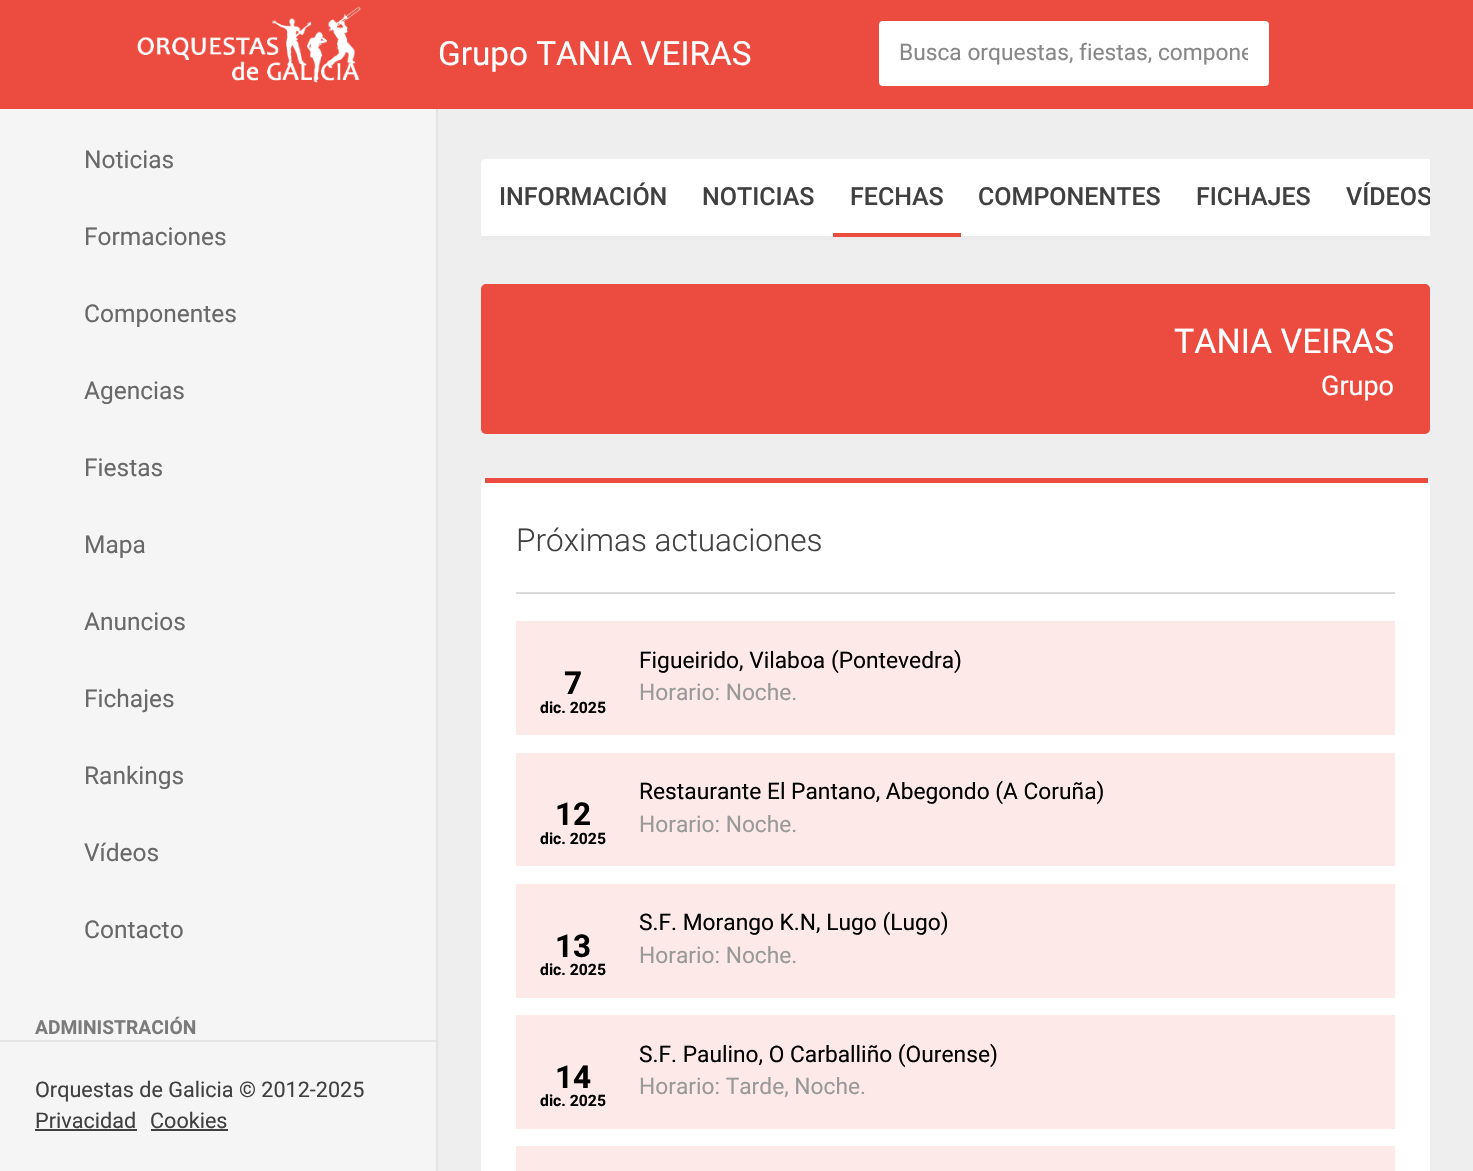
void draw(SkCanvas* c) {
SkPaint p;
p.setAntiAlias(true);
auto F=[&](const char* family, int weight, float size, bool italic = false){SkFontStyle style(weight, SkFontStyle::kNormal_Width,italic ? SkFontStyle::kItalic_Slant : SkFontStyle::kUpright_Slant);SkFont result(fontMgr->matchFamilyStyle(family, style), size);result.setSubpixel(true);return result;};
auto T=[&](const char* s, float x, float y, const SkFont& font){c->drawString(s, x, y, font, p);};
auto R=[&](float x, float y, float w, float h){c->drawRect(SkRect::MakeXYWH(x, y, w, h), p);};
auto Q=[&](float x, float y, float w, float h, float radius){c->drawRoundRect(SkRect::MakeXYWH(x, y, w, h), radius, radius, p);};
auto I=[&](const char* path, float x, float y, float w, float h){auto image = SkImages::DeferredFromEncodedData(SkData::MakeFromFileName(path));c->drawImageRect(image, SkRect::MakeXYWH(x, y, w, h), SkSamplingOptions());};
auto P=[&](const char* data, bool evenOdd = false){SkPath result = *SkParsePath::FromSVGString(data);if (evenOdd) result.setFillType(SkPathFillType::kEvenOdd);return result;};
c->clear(0xffeeeeee);
p.setColor(0xffe3e3e3);
R(436,105,2,1066);
p.setColor(0xffec4c40);
R(0,0,1473,109);
I("1.png",137,6,224,77);
auto f1 = F("Roboto",400,33.25);
p.setColor(0xffffffff);
T("Grupo TANIA VEIRAS",438,65,f1);
Q(879,21,390,65,4);
c->save();
c->clipRect(SkRect::MakeXYWH(900,40,348,27));
auto f2 = F("Roboto",400,22.75);
p.setColor(0xff878787);
T("Busca orquestas, fiestas, compone",899,60,f2);
c->restore();
p.setColor(0xfff5f5f5);
R(0,109,436,931);
auto f3 = F("Roboto",400,24.5);
p.setColor(0xff696969);
T("Noticias",84,168,f3);
T("Formaciones",84,245,f3);
T("Componentes",84,322,f3);
T("Agencias",84,399,f3);
T("Fiestas",84,476,f3);
T("Mapa",84,553,f3);
T("Anuncios",84,630,f3);
T("Fichajes",84,707,f3);
T("Rankings",84,784,f3);
T("Vídeos",84,861,f3);
T("Contacto",84,938,f3);
auto f4 = F("Roboto",700,19.25);
p.setColor(0xff7b7b7b);
T("ADMINISTRACIÓN",35,1034,f4);
p.setColor(0xfff5f5f5);
R(0,1042,436,129);
p.setColor(0xffe6e6e6);
R(0,1040,436,2);
auto f5 = F("Roboto",400,21.6);
p.setColor(0xff404040);
T("Orquestas de Galicia © 2012-2025",35,1097,f5);
T("Privacidad",35,1128,f5);
R(35,1129,102,2);
T("Cookies",150,1128,f5);
R(151,1129,77,2);
p.setColor(0xffffffff);
c->drawPath(P("M485 159h945v81h-949v-77c0-2 2-4 4-4z"),p);
p.setColor(0xffebebeb);
R(481,236,949,4);
auto f6 = F("Roboto",500,25);
p.setColor(0xff404040);
T("INFORMACIÓN",499,205,f6);
T("NOTICIAS",702,205,f6);
p.setColor(0xffec4c40);
R(833,233,128,4);
p.setColor(0xff404040);
T("FECHAS",850,205,f6);
T("COMPONENTES",978,205,f6);
T("FICHAJES",1196,205,f6);
c->save();
c->clipRect(SkRect::MakeXYWH(481,159,949,81));
T("VÍDEOS",1346,205,f6);
c->restore();
p.setColor(0xffec4c40);
Q(481,284,949,150,5);
auto f7 = F("Roboto",400,34);
p.setColor(0xffffffff);
T("TANIA VEIRAS",1174,353,f7);
auto f8 = F("Roboto",400,27);
T("Grupo",1321,395,f8);
Q(481,478,949,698,5);
p.setColor(0xffec4c40);
R(485,478,943,5);
p.setColor(0xffd9d9d9);
R(516,592,879,2);
auto f9 = F("Roboto",300,31.5);
p.setColor(0xff404040);
T("Próximas actuaciones",516,551,f9);
p.setColor(0xfffdeae8);
R(516,621,879,114);
auto f10 = F("Roboto",700,31.5);
p.setColor(0xff000000);
T("7",564,694,f10);
auto f11 = F("Roboto",700,15.75);
T("dic. 2025",540,713,f11);
T("Figueirido, Vilaboa (Pontevedra)",639,668,f2);
p.setColor(0xff999999);
T("Horario: Noche.",639,700,f2);
p.setColor(0xfffdeae8);
R(516,753,879,113);
p.setColor(0xff000000);
T("12",555,825,f10);
T("dic. 2025",540,844,f11);
T("Restaurante El Pantano, Abegondo (A Coruña)",639,799,f2);
p.setColor(0xff999999);
T("Horario: Noche.",639,832,f2);
p.setColor(0xfffdeae8);
R(516,884,879,114);
p.setColor(0xff000000);
T("13",555,957,f10);
T("dic. 2025",540,975,f11);
T("S.F. Morango K.N, Lugo (Lugo)",639,930,f2);
p.setColor(0xff999999);
T("Horario: Noche.",639,963,f2);
p.setColor(0xfffdeae8);
R(516,1015,879,114);
p.setColor(0xff000000);
T("14",555,1088,f10);
T("dic. 2025",540,1106,f11);
T("S.F. Paulino, O Carballiño (Ourense)",639,1062,f2);
p.setColor(0xff999999);
T("Horario: Tarde, Noche.",639,1094,f2);
p.setColor(0xfffdeae8);
R(516,1146,879,25);
}
